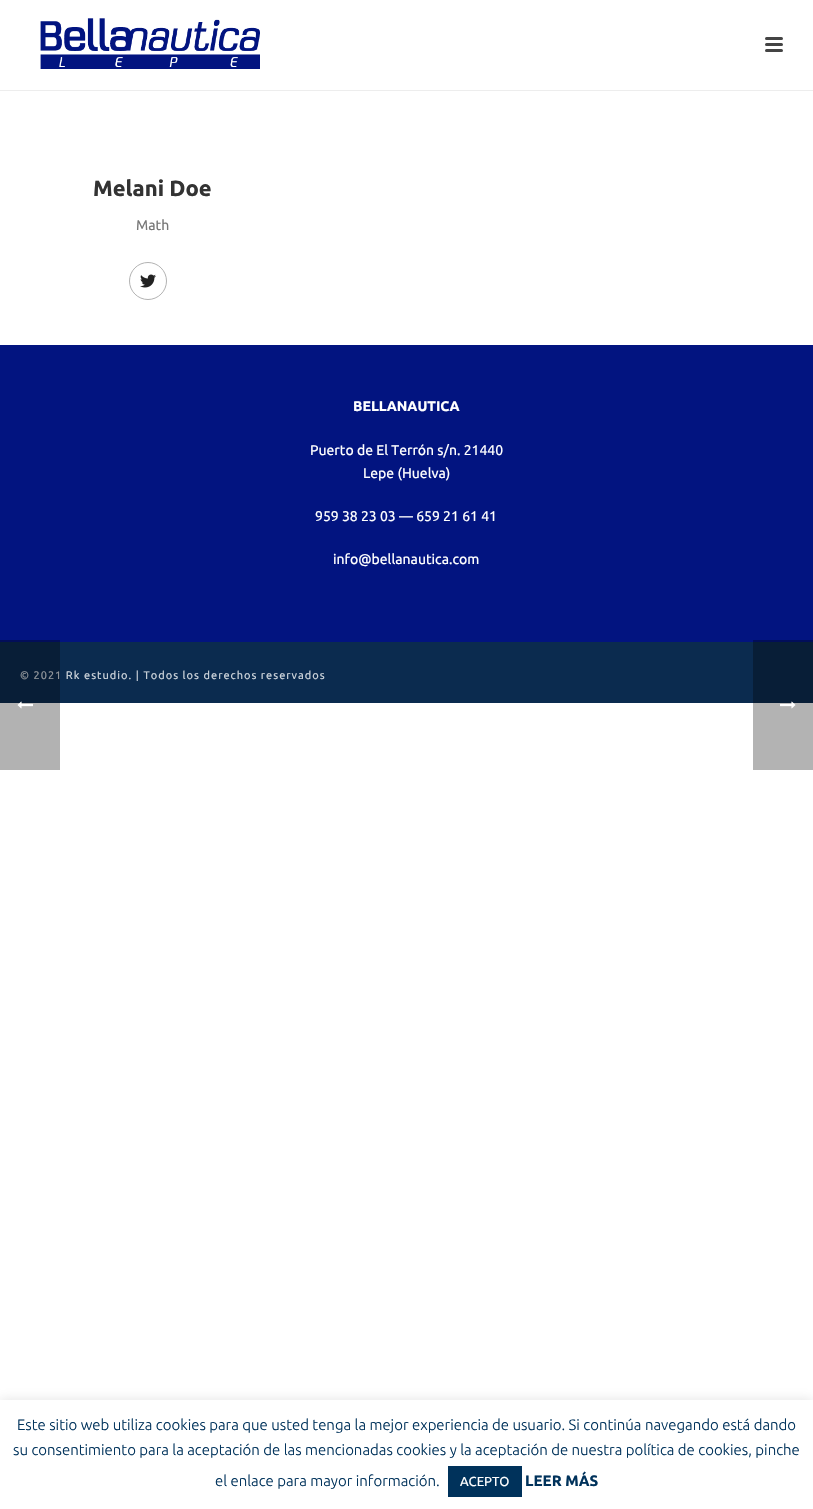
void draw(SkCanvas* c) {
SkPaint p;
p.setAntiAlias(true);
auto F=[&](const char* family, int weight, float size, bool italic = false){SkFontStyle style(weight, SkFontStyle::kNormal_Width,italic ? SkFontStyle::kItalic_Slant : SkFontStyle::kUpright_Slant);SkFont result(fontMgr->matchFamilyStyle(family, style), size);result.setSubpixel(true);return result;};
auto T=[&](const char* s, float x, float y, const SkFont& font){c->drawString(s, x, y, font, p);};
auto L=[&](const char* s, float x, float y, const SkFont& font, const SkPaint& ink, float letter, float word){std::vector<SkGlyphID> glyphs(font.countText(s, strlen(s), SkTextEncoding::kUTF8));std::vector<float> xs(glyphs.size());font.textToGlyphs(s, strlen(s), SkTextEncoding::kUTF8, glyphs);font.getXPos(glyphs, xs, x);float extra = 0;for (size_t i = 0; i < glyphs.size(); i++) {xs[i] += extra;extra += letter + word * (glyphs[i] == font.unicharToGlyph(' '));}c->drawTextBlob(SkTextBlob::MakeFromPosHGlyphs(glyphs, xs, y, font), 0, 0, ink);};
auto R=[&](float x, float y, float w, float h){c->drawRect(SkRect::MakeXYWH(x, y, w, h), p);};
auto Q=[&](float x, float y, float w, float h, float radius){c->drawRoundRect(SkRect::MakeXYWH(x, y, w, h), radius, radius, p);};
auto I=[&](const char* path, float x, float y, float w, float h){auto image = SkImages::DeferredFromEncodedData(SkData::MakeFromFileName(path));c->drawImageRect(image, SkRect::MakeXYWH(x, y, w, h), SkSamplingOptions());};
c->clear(0xffffffff);
p.setColor(0xffb3b3b3);
R(753,703,60,67);
p.setColor(0xffededed);
R(0,90,813,1);
I("1.png",40,18,220,51);
p.setColor(0xff444444);
Q(765,37,18,3,1.5);
Q(765,43,18,3,1.5);
Q(765,49,18,3,1.5);
auto f1 = F("Ubuntu",700,22);
p.setColor(0xff333333);
T("Melani Doe",93,196,f1);
auto f2 = F("Ubuntu",400,14);
p.setColor(0xff777777);
T("Math",136,230,f2);
p.setStroke(true);
p.setStrokeWidth(1);
p.setColor(0xffb2b2b2);
c->drawCircle(148,281,18.5,p);
I("2.png",140,274,16,14);
p.setStroke(false);
p.setColor(0xff021480);
R(0,345,813,297);
p.setColor(0xff010e5a);
R(753,640,60,2);
auto f3 = F("Ubuntu",700,14);
p.setColor(0xffffffff);
T("BELLANAUTICA",353,411,f3);
T("Puerto de El Terrón s/n. 21440",310,455,f2);
T("Lepe (Huelva)",363,478,f2);
T("959 38 23 03 — 659 21 61 41",315,521,f2);
T("info@bellanautica.com",333,564,f2);
p.setColor(0xff0b2b4f);
R(0,642,753,61);
p.setColor(0xff081e37);
R(753,642,60,61);
auto f4 = F("Ubuntu",400,11);
p.setColor(0xffced5dc);
L("© 2021 Rk estudio. | Todos los derechos reservados",20,679,f4,p,1,0);
p.setColor(0x4d000000);
R(0,640,60,130);
I("3.png",17,701,16,8);
I("4.png",780,701,16,8);
p.setColor(0x4dacabab);
p.setMaskFilter(SkMaskFilter::MakeBlur(kNormal_SkBlurStyle, 5));
c->drawRect(SkRect::MakeXYWH(0,1399,813,109),p);
p.setMaskFilter(nullptr);
p.setColor(0xffffffff);
R(0,1400,813,109);
auto f5 = F("Ubuntu",300,15);
p.setColor(0xff00325b);
T("Este sitio web utiliza cookies para que usted tenga la mejor experiencia de usuario. Si continúa navegando está dando",17,1430,f5);
T("su consentimiento para la aceptación de las mencionadas cookies y la aceptación de nuestra política de cookies, pinche",13,1455,f5);
T("el enlace para mayor información.",215,1486,f5);
R(448,1466,74,31);
auto f6 = F("Ubuntu",400,13);
p.setColor(0xffffffff);
T("ACEPTO",460,1486,f6);
auto f7 = F("Ubuntu",700,15);
p.setColor(0xff00325b);
T("LEER MÁS",525,1486,f7);
}
